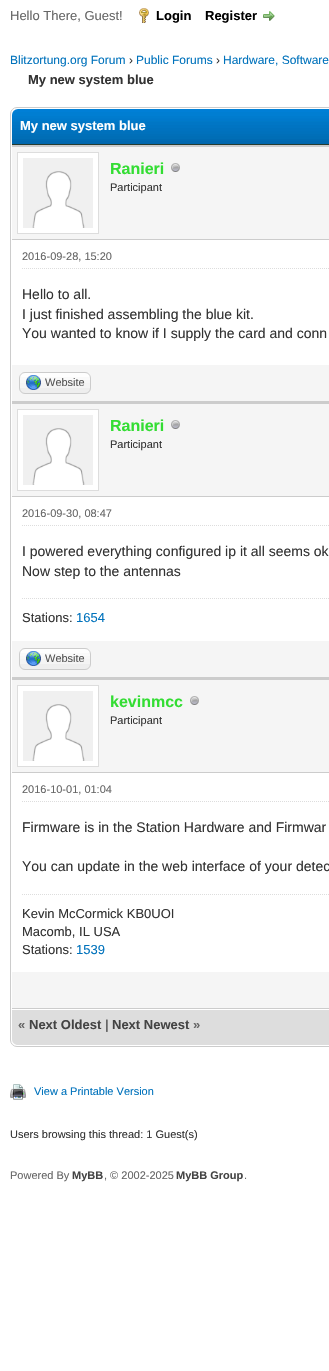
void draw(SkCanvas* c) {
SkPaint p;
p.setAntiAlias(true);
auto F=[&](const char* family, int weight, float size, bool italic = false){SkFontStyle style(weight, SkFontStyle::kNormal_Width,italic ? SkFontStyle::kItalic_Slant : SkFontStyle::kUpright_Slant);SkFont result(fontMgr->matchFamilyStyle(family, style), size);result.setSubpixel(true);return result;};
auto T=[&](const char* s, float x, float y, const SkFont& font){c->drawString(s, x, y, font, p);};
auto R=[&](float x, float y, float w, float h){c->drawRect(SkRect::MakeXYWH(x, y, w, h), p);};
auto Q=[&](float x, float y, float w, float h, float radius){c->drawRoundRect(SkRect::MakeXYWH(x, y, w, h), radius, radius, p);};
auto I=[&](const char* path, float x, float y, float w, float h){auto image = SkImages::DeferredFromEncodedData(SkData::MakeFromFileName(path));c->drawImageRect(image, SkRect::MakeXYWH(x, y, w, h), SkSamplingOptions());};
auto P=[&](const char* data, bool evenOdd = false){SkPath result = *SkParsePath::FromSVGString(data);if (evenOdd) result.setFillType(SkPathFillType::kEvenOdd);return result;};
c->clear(0xffffffff);
auto f1 = F("Liberation Sans",400,13);
p.setColor(0xff666666);
T("Hello There, Guest!",10,20,f1);
I("1.png",139,8,10,15);
auto f2 = F("Liberation Sans",700,13);
p.setColor(0xff000000);
T("Login",156,20,f2);
T("Register",205,20,f2);
I("2.png",263,11,12,10);
auto f3 = F("Liberation Sans",400,12);
p.setColor(0xff0072bc);
T("Blitzortung.org Forum",10,64,f3);
p.setColor(0xff333333);
T("›",129,64,f3);
p.setColor(0xff0072bc);
T("Public Forums",136,64,f3);
p.setColor(0xff333333);
T("›",216,64,f3);
p.setColor(0xff0072bc);
T("Hardware, Software",223,64,f3);
p.setColor(0xff333333);
T("My new system blue",28,84,f2);
p.setStroke(true);
p.setStrokeWidth(1);
p.setColor(0xffcccccc);
c->drawRoundRect(SkRect::MakeXYWH(10.5,107.5,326,939),6.5,6.5,p);
I("3.png",12,109,317,35);
p.setStroke(false);
p.setColor(0xff263c30);
R(12,144,317,1);
p.setColor(0xffffffff);
T("My new system blue",20,130,f2);
p.setColor(0xfff5f5f5);
R(12,147,317,92);
p.setColor(0xffcccccc);
R(12,145,317,2);
R(12,239,317,1);
p.setColor(0xffffffff);
c->drawRect(SkRect::MakeXYWH(17.5,152.5,81,81),p);
p.setStroke(true);
p.setColor(0xffdddddd);
c->drawRect(SkRect::MakeXYWH(17.5,152.5,81,81),p);
I("4.png",23,158,70,70);
auto f4 = F("Liberation Sans",700,16);
p.setStroke(false);
p.setColor(0xff33dd33);
T("Ranieri",110,174,f4);
I("5.png",171,163,9,9);
auto f5 = F("Liberation Sans",400,11);
p.setColor(0xff333333);
T("Participant",110,191,f5);
p.setStroke(true);
p.setColor(0xffdddddd);
p.setPathEffect(SkDashPathEffect::Make({{1,1}}, 0));
c->drawPath(P("M22 268.5h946"),p);
p.setPathEffect(nullptr);
p.setStroke(false);
p.setColor(0xff666666);
T("2016-09-28, 15:20",22,260,f5);
auto f6 = F("Liberation Sans",400,14);
p.setColor(0xff333333);
T("Hello to all.",22,299,f6);
T("I just finished assembling the blue kit.",22,319,f6);
T("You wanted to know if I supply the card and conn",22,338,f6);
p.setColor(0xfff5f5f5);
R(12,365,317,36);
p.setColor(0xffcccccc);
R(12,401,317,3);
p.setColor(0xffeeeeee);
Q(19,372,72,22,6);
I("6.png",19,373,72,15);
p.setStroke(true);
p.setColor(0xffcccccc);
c->drawRoundRect(SkRect::MakeXYWH(19.5,372.5,71,21),5.5,5.5,p);
I("7.png",26,375,15,15);
p.setStroke(false);
p.setColor(0xff555555);
T("Website",45,386,f5);
p.setColor(0xfff5f5f5);
R(12,404,317,92);
p.setColor(0xffcccccc);
R(12,496,317,1);
p.setColor(0xffffffff);
c->drawRect(SkRect::MakeXYWH(17.5,409.5,81,81),p);
p.setStroke(true);
p.setColor(0xffdddddd);
c->drawRect(SkRect::MakeXYWH(17.5,409.5,81,81),p);
I("4.png",23,415,70,70);
p.setStroke(false);
p.setColor(0xff33dd33);
T("Ranieri",110,431,f4);
I("5.png",171,420,9,9);
p.setColor(0xff333333);
T("Participant",110,448,f5);
p.setStroke(true);
p.setColor(0xffdddddd);
p.setPathEffect(SkDashPathEffect::Make({{1,1}}, 0));
c->drawPath(P("M22 525.5h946"),p);
p.setPathEffect(nullptr);
p.setStroke(false);
p.setColor(0xff666666);
T("2016-09-30, 08:47",22,517,f5);
p.setColor(0xff333333);
T("I powered everything configured ip it all seems ok",22,556,f6);
T("Now step to the antennas",22,576,f6);
p.setStroke(true);
p.setColor(0xffdddddd);
p.setPathEffect(SkDashPathEffect::Make({{1,1}}, 0));
c->drawPath(P("M22 598.5h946"),p);
p.setPathEffect(nullptr);
p.setStroke(false);
p.setColor(0xff333333);
T("Stations:",22,622,f1);
p.setColor(0xff0072bc);
T("1654",76,622,f1);
p.setColor(0xfff5f5f5);
R(12,641,317,36);
p.setColor(0xffcccccc);
R(12,677,317,3);
p.setColor(0xffeeeeee);
Q(19,648,72,22,6);
I("6.png",19,649,72,15);
p.setStroke(true);
p.setColor(0xffcccccc);
c->drawRoundRect(SkRect::MakeXYWH(19.5,648.5,71,21),5.5,5.5,p);
I("7.png",26,651,15,15);
p.setStroke(false);
p.setColor(0xff555555);
T("Website",45,662,f5);
p.setColor(0xfff5f5f5);
R(12,680,317,92);
p.setColor(0xffcccccc);
R(12,772,317,1);
p.setColor(0xffffffff);
c->drawRect(SkRect::MakeXYWH(17.5,685.5,81,81),p);
p.setStroke(true);
p.setColor(0xffdddddd);
c->drawRect(SkRect::MakeXYWH(17.5,685.5,81,81),p);
I("4.png",23,691,70,70);
p.setStroke(false);
p.setColor(0xff33dd33);
T("kevinmcc",110,707,f4);
I("5.png",190,696,9,9);
p.setColor(0xff333333);
T("Participant",110,724,f5);
p.setStroke(true);
p.setColor(0xffdddddd);
p.setPathEffect(SkDashPathEffect::Make({{1,1}}, 0));
c->drawPath(P("M22 801.5h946"),p);
p.setPathEffect(nullptr);
p.setStroke(false);
p.setColor(0xff666666);
T("2016-10-01, 01:04",22,793,f5);
p.setColor(0xff333333);
T("Firmware is in the Station Hardware and Firmwar",22,832,f6);
T("You can update in the web interface of your detec",22,871,f6);
p.setStroke(true);
p.setColor(0xffdddddd);
p.setPathEffect(SkDashPathEffect::Make({{1,1}}, 0));
c->drawPath(P("M22 894.5h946"),p);
p.setPathEffect(nullptr);
p.setStroke(false);
p.setColor(0xff333333);
T("Kevin McCormick KB0UOI",22,918,f1);
T("Macomb, IL USA",22,936,f1);
T("Stations:",22,954,f1);
p.setColor(0xff0072bc);
T("1539",76,954,f1);
p.setColor(0xfff5f5f5);
R(12,972,317,36);
p.setColor(0xffcccccc);
R(12,1008,317,1);
p.setColor(0xffdddddd);
c->drawPath(P("M12 1009h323v30c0 3.5-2.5 6-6 6h-311c-3.5 0-6-2.5-6-6z"),p);
p.setColor(0xffffffff);
R(12,1009,317,1);
p.setColor(0xff666666);
T("«",18,1029,f2);
p.setColor(0xff444444);
T("Next Oldest",29,1029,f2);
p.setColor(0xff666666);
T("|",105,1029,f2);
p.setColor(0xff444444);
T("Next Newest",112,1029,f2);
p.setColor(0xff666666);
T("»",193,1029,f2);
I("8.png",10,1084,16,16);
p.setColor(0xff0072bc);
T("View a Printable Version",34,1095,f5);
p.setColor(0xff333333);
T("Users browsing this thread: 1 Guest(s)",10,1138,f5);
p.setColor(0xff666666);
T("Powered By",10,1179,f5);
auto f7 = F("Liberation Sans",700,11);
p.setColor(0xff444444);
T("MyBB",72,1179,f7);
p.setColor(0xff666666);
T(", © 2002-2025",104,1179,f5);
p.setColor(0xff444444);
T("MyBB Group",176,1179,f7);
p.setColor(0xff666666);
T(".",244,1179,f5);
}
